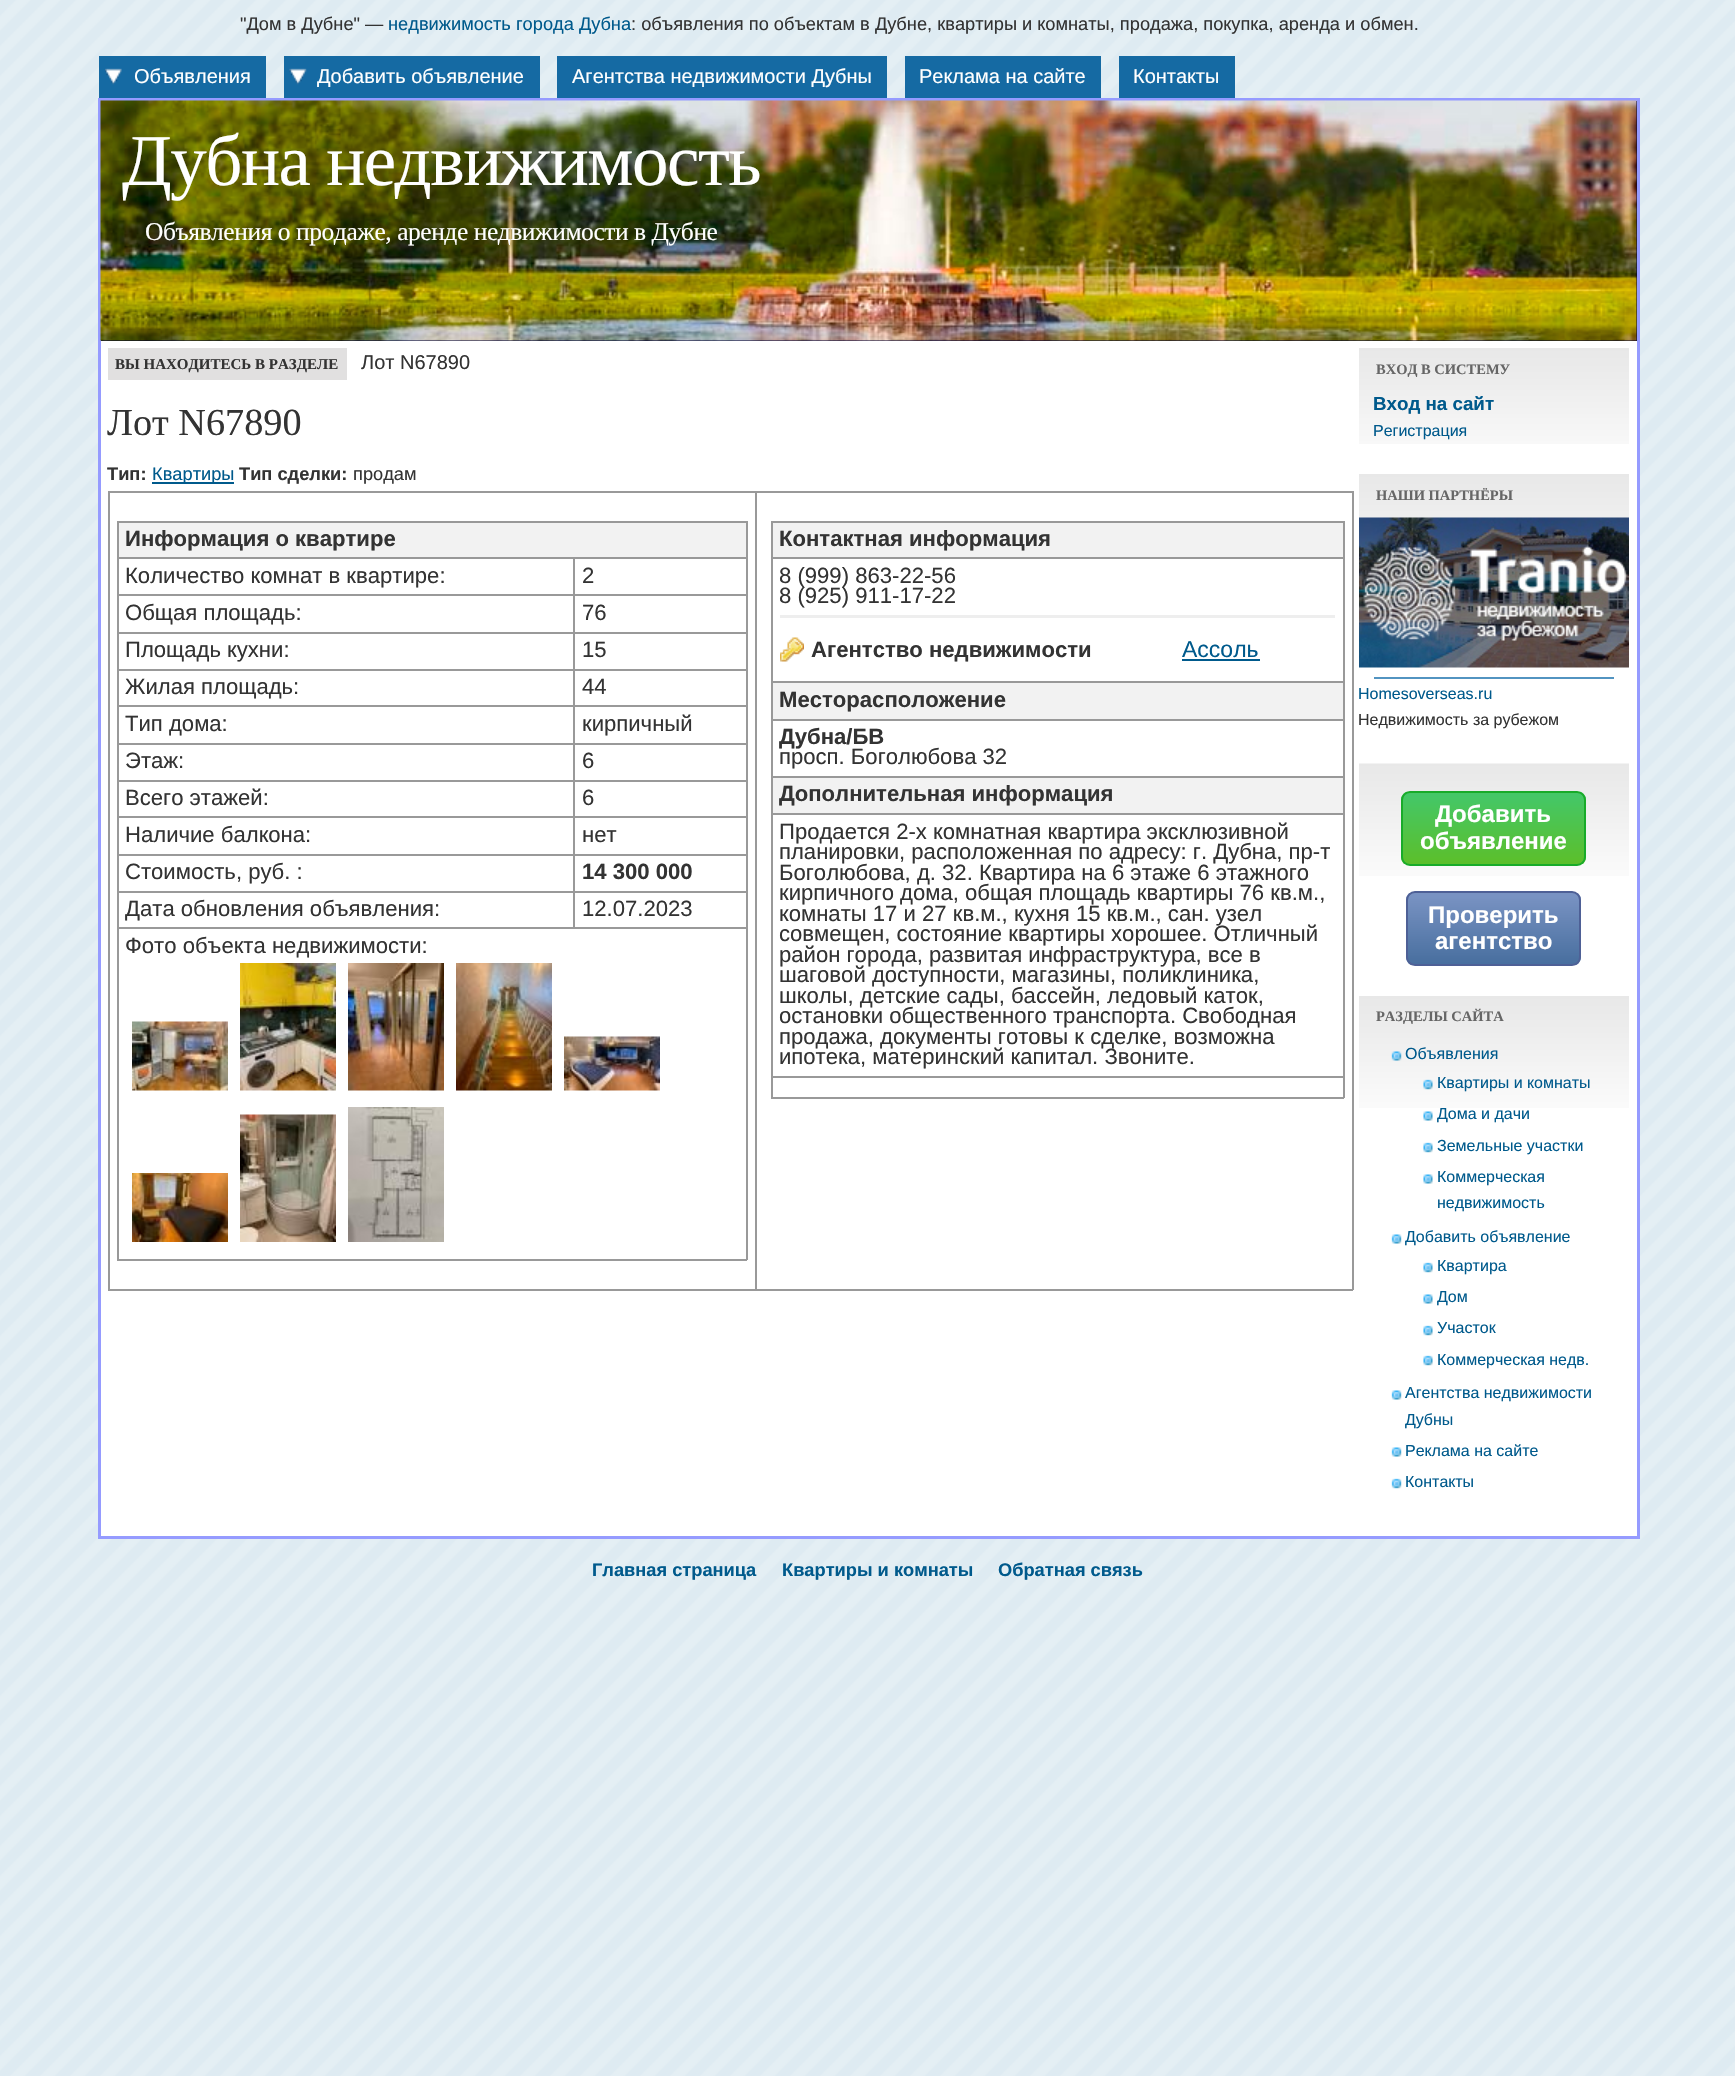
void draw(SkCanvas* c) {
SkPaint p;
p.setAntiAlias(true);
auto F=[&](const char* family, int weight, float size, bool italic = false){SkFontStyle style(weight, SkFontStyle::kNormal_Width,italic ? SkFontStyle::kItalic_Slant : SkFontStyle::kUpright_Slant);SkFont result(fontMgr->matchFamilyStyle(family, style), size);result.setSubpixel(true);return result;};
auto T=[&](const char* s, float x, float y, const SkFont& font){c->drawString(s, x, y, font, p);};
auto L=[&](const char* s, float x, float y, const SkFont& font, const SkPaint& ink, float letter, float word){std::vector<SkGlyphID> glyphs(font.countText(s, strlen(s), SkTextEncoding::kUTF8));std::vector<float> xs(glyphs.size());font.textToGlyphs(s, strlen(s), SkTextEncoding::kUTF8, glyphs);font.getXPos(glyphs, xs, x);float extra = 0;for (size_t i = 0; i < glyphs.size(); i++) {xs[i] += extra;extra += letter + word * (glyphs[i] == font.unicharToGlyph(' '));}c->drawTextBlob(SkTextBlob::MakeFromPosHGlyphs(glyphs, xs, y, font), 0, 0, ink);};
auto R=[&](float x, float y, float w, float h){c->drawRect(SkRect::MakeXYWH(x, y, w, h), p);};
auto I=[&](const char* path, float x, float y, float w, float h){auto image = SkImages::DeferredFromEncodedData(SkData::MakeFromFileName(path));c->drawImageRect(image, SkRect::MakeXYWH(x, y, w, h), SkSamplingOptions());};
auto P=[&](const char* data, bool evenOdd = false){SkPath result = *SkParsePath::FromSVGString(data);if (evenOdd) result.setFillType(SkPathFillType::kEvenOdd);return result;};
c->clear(0xffffffff);
I("1.png",0,0,1735,2076);
auto f1 = F("Liberation Sans",400,18.25);
p.setColor(0xff333333);
T("\"Дом в Дубне\" —",240,30,f1);
p.setColor(0xff005a8c);
T("недвижимость города Дубна",388,30,f1);
p.setColor(0xff333333);
T(": объявления по объектам в Дубне, квартиры и комнаты, продажа, покупка, аренда и обмен.",631,30,f1);
p.setColor(0xff156aa3);
R(99,56,167,42);
I("2.png",105,68,17,17);
auto f2 = F("Liberation Sans",400,20);
p.setColor(0xffffffff);
T("Объявления",134,83,f2);
p.setColor(0xff156aa3);
R(284,56,256,42);
I("3.png",289,68,18,17);
p.setColor(0xffffffff);
T("Добавить объявление",317,83,f2);
p.setColor(0xff156aa3);
R(557,56,330,42);
p.setColor(0xffffffff);
T("Агентства недвижимости Дубны",572,83,f2);
p.setColor(0xff156aa3);
R(905,56,196,42);
p.setColor(0xffffffff);
T("Реклама на сайте",919,83,f2);
p.setColor(0xff156aa3);
R(1119,56,116,42);
p.setColor(0xffffffff);
T("Контакты",1133,83,f2);
R(101,341,1536,1195);
p.setStroke(true);
p.setStrokeWidth(3);
p.setColor(0xff959bff);
c->drawRect(SkRect::MakeXYWH(99.5,99.5,1539,1438),p);
p.setStroke(false);
p.setColor(0xff000033);
R(101,101,1536,240);
I("4.png",100,100,1537,241);
auto f3 = F("Liberation Serif",400,73);
p.setColor(0xffffffff);
L("Дубна недвижимость",122,185,f3,p,-1.5,0);
auto f4 = F("Liberation Serif",400,25.5);
L("Объявления о продаже, аренде недвижимости в Дубне",145,240,f4,p,-.45,0);
p.setColor(0xffe1e0e0);
R(108,348,239,32);
auto f5 = F("Liberation Serif",700,15);
p.setColor(0xff333333);
T("ВЫ НАХОДИТЕСЬ В РАЗДЕЛЕ",115,369,f5);
T("Лот N67890",361,369,f2);
auto f6 = F("Liberation Serif",400,38.25);
T("Лот N67890",107,435,f6);
auto f7 = F("Liberation Sans",700,18.25);
T("Тип:",107,480,f7);
p.setColor(0xff005a8c);
R(152,482,82,2);
T("Квартиры",152,480,f1);
p.setColor(0xff333333);
T("Тип сделки:",239,480,f7);
T("продам",353,480,f1);
p.setColor(0xff999999);
R(755,491,598,2);
R(1352,491,2,799);
R(755,1289,598,2);
R(755,491,2,799);
R(108,491,648,2);
R(108,1289,648,2);
R(108,491,2,799);
p.setColor(0xfff2f2f2);
R(119,523,627,34);
p.setColor(0xff999999);
R(117,521,630,2);
R(573,557,174,2);
R(573,594,174,2);
R(573,632,174,2);
R(573,669,174,2);
R(573,705,174,2);
R(573,743,174,2);
R(573,780,174,2);
R(573,816,174,2);
R(573,854,174,2);
R(573,891,174,2);
R(117,927,630,2);
R(746,927,2,333);
R(746,891,2,38);
R(746,854,2,39);
R(746,816,2,39);
R(746,780,2,38);
R(746,743,2,39);
R(746,705,2,39);
R(746,669,2,38);
R(746,632,2,39);
R(746,594,2,39);
R(746,557,2,39);
R(746,521,2,37);
R(573,891,2,38);
R(117,891,458,2);
R(573,854,2,39);
R(117,854,458,2);
R(573,816,2,39);
R(117,816,458,2);
R(573,780,2,38);
R(117,780,458,2);
R(573,743,2,39);
R(117,743,458,2);
R(573,705,2,39);
R(117,705,458,2);
R(573,669,2,38);
R(117,669,458,2);
R(573,632,2,39);
R(117,632,458,2);
R(573,594,2,39);
R(117,594,458,2);
R(573,557,2,39);
R(117,557,458,2);
R(117,1259,630,2);
R(117,927,2,333);
R(117,891,2,38);
R(117,854,2,39);
R(117,816,2,39);
R(117,780,2,38);
R(117,743,2,39);
R(117,705,2,39);
R(117,669,2,38);
R(117,632,2,39);
R(117,594,2,39);
R(117,557,2,39);
R(117,521,2,37);
auto f8 = F("Liberation Sans",700,22.1);
p.setColor(0xff333333);
T("Информация о квартире",125,546,f8);
auto f9 = F("Liberation Sans",400,22.1);
T("Количество комнат в квартире:",125,583,f9);
T("2",582,583,f9);
T("Общая площадь:",125,620,f9);
T("76",582,620,f9);
T("Площадь кухни:",125,657,f9);
T("15",582,657,f9);
T("Жилая площадь:",125,694,f9);
T("44",582,694,f9);
T("Тип дома:",125,731,f9);
T("кирпичный",582,731,f9);
T("Этаж:",125,768,f9);
T("6",582,768,f9);
T("Всего этажей:",125,805,f9);
T("6",582,805,f9);
T("Наличие балкона:",125,842,f9);
T("нет",582,842,f9);
T("Стоимость, руб. :",125,879,f9);
T("14 300 000",582,879,f8);
T("Дата обновления объявления:",125,916,f9);
T("12.07.2023",582,916,f9);
T("Фото объекта недвижимости:",125,953,f9);
I("5.png",132,1021,96,70);
I("6.png",240,963,96,128);
I("7.png",348,963,96,128);
I("8.png",456,963,96,128);
I("9.png",564,1036,96,55);
I("10.png",132,1173,96,69);
I("11.png",240,1114,96,128);
I("12.png",348,1107,96,135);
p.setColor(0xfff2f2f2);
R(773,523,570,34);
p.setColor(0xff999999);
R(771,521,573,2);
R(771,557,573,2);
R(771,681,573,2);
R(771,719,573,2);
R(771,776,573,2);
R(771,813,573,2);
R(771,1076,573,2);
R(1343,1076,2,22);
R(1343,813,2,264);
R(1343,776,2,39);
R(1343,719,2,58);
R(1343,681,2,39);
R(1343,557,2,126);
R(1343,521,2,37);
R(771,1097,573,2);
R(771,1076,2,22);
R(771,813,2,264);
R(771,776,2,39);
R(771,719,2,58);
R(771,681,2,39);
R(771,557,2,126);
R(771,521,2,37);
p.setColor(0xff333333);
T("Контактная информация",779,546,f8);
T("8 (999) 863-22-56",779,583,f9);
T("8 (925) 911-17-22",779,603,f9);
p.setColor(0xffeeeeee);
R(780,615,555,3);
I("13.png",780,637,24,25);
p.setColor(0xff333333);
T("Агентство недвижимости",811,657,f8);
auto f10 = F("Liberation Sans",400,23);
p.setColor(0xff005a8c);
T("Ассоль",1182,657,f10);
R(1182,659,78,2);
p.setColor(0xfff2f2f2);
R(773,683,570,36);
p.setColor(0xff333333);
T("Месторасположение",779,707,f8);
T("Дубна/БВ",779,744,f8);
T("просп. Боголюбова 32",779,764,f9);
p.setColor(0xfff2f2f2);
R(773,778,570,35);
p.setColor(0xff333333);
T("Дополнительная информация",779,801,f8);
T("Продается 2-х комнатная квартира эксклюзивной",779,839,f9);
T("планировки, расположенная по адресу: г. Дубна, пр-т",779,859,f9);
T("Боголюбова, д. 32. Квартира на 6 этаже 6 этажного",779,880,f9);
T("кирпичного дома, общая площадь квартиры 76 кв.м.,",779,900,f9);
T("комнаты 17 и 27 кв.м., кухня 15 кв.м., сан. узел",779,921,f9);
T("совмещен, состояние квартиры хорошее. Отличный",779,941,f9);
T("район города, развитая инфраструктура, все в",779,962,f9);
T("шаговой доступности, магазины, поликлиника,",779,982,f9);
T("школы, детские сады, бассейн, ледовый каток,",779,1003,f9);
T("остановки общественного транспорта. Свободная",779,1023,f9);
T("продажа, документы готовы к сделке, возможна",779,1044,f9);
T("ипотека, материнский капитал. Звоните.",779,1064,f9);
I("14.png",1359,348,270,96);
auto f11 = F("Liberation Serif",700,14.5);
p.setColor(0xff666666);
T("ВХОД В СИСТЕМУ",1376,374,f11);
auto f12 = F("Liberation Sans",700,18.75);
p.setColor(0xff005a8c);
T("Вход на сайт",1373,410,f12);
auto f13 = F("Liberation Sans",400,16);
T("Регистрация",1373,436,f13);
I("15.png",1359,474,270,44);
p.setColor(0xff666666);
T("НАШИ ПАРТНЁРЫ",1376,500,f11);
I("16.png",1359,517,270,151);
p.setColor(0xff5294c1);
R(1374,677,240,2);
p.setColor(0xff005a8c);
T("Homesoverseas.ru",1358,699,f13);
p.setColor(0xff333333);
T("Недвижимость за рубежом",1358,725,f13);
I("17.png",1359,763,270,113);
c->save();
c->clipPath(P("M1410 791h167c5 0 9 4 9 9v57c0 5-4 9-9 9h-167c-5 0-9-4-9-9v-57c0-5 4-9 9-9z"),true);
{
const SkColor colors[] = {0xff44c767,0xff5cbf2a};
const float stops[] = {.05,1};
const SkPoint ends[] = {{1493,792}, {1493,864}};
p.setShader(SkGradientShader::MakeLinear(ends, colors, stops, 2, SkTileMode::kClamp));
p.setAlpha(255);
}
R(1401,792,185,72);
c->restore();
p.setStroke(true);
p.setStrokeWidth(2);
p.setShader(nullptr);
p.setColor(0xff18ab29);
c->drawRoundRect(SkRect::MakeXYWH(1402,792,183,73),8,8,p);
auto f14 = F("Liberation Sans",700,24);
p.setStroke(false);
p.setColor(0xffffffff);
T("Добавить",1435,822,f14);
T("объявление",1420,849,f14);
c->save();
c->clipPath(P("M1415 891h157c5 0 9 4 9 9v57c0 5-4 9-9 9h-157c-5 0-9-4-9-9v-57c0-5 4-9 9-9z"),true);
{
const SkColor colors[] = {0xff7892c2,0xff476e9e};
const float stops[] = {.05,1};
const SkPoint ends[] = {{1493,893}, {1493,965}};
p.setShader(SkGradientShader::MakeLinear(ends, colors, stops, 2, SkTileMode::kClamp));
p.setAlpha(255);
}
R(1406,893,175,72);
c->restore();
p.setStroke(true);
p.setShader(nullptr);
p.setColor(0xff4e6096);
c->drawRoundRect(SkRect::MakeXYWH(1407,892,173,73),8,8,p);
p.setStroke(false);
p.setColor(0xffffffff);
T("Проверить",1428,923,f14);
T("агентство",1435,949,f14);
I("18.png",1359,996,270,112);
p.setColor(0xff666666);
T("РАЗДЕЛЫ САЙТА",1376,1021,f11);
I("19.png",1391,1051,11,10);
p.setColor(0xff005a8c);
T("Объявления",1405,1059,f13);
I("20.png",1423,1079,10,11);
T("Квартиры и комнаты",1437,1088,f13);
I("21.png",1423,1111,10,10);
T("Дома и дачи",1437,1119,f13);
I("22.png",1423,1142,10,11);
T("Земельные участки",1437,1151,f13);
I("21.png",1423,1174,10,10);
T("Коммерческая",1437,1182,f13);
T("недвижимость",1437,1208,f13);
I("23.png",1391,1234,11,10);
T("Добавить объявление",1405,1242,f13);
I("22.png",1423,1262,10,11);
T("Квартира",1437,1271,f13);
I("21.png",1423,1294,10,10);
T("Дом",1437,1302,f13);
I("22.png",1423,1325,10,11);
T("Участок",1437,1333,f13);
I("22.png",1423,1355,10,11);
T("Коммерческая недв.",1437,1365,f13);
I("23.png",1391,1390,11,10);
T("Агентства недвижимости",1405,1398,f13);
T("Дубны",1405,1425,f13);
I("23.png",1391,1447,11,10);
T("Реклама на сайте",1405,1456,f13);
I("24.png",1391,1478,11,11);
T("Контакты",1405,1487,f13);
T("Главная страница",592,1576,f7);
T("Квартиры и комнаты",782,1576,f7);
T("Обратная связь",998,1576,f7);
}
